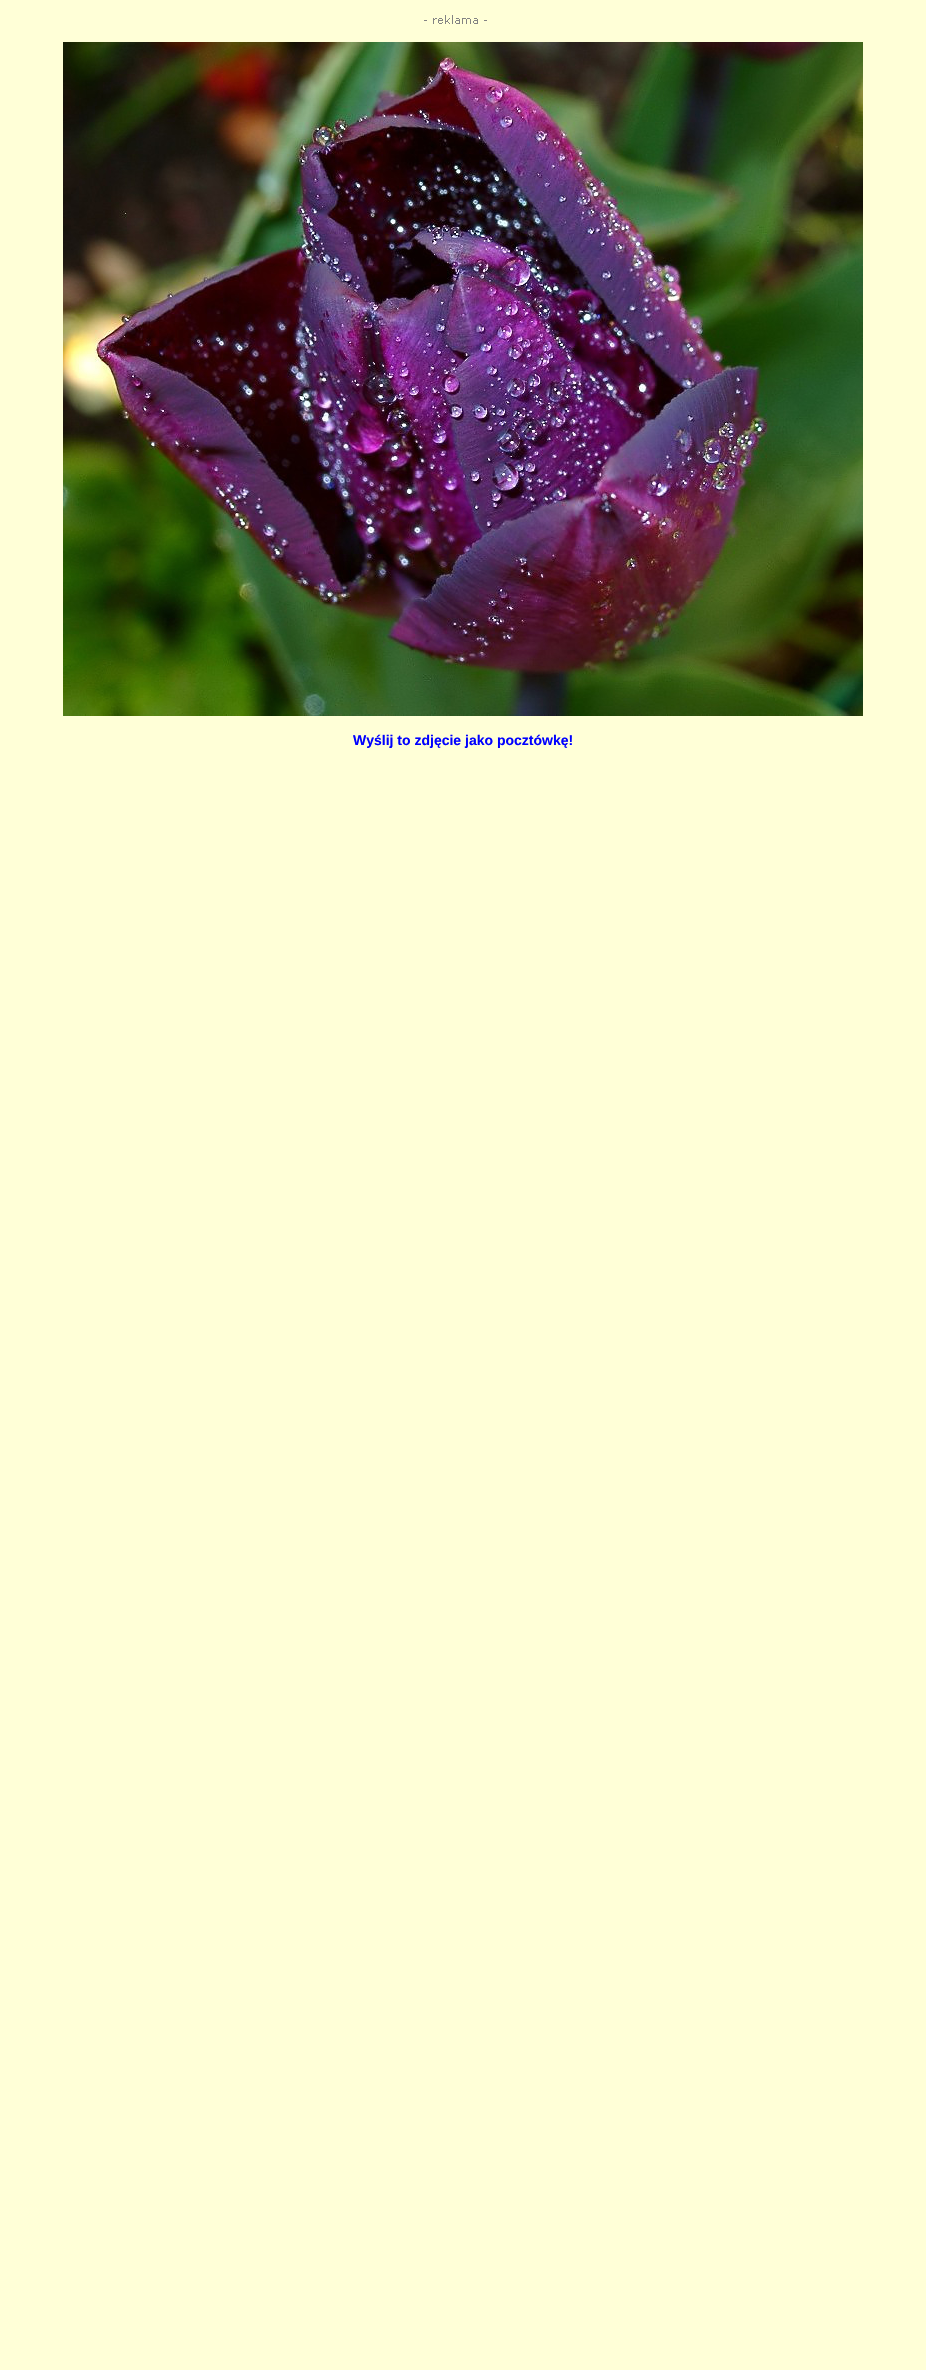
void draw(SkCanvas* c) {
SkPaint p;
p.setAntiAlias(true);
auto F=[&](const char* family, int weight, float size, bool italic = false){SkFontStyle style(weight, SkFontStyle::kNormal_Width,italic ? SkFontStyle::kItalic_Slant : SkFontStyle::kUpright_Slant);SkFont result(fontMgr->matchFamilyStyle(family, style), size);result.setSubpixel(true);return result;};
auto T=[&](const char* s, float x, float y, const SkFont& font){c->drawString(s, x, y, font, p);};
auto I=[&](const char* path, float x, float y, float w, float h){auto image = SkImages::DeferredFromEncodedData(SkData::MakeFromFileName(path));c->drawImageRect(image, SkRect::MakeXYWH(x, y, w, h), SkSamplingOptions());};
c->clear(0xffffffd7);
I("1.png",424,15,63,9);
I("2.png",63,42,800,674);
auto f1 = F("Liberation Sans",700,14);
p.setColor(0xff0000ff);
T("Wyślij to zdjęcie jako pocztówkę!",353,745,f1);
}
